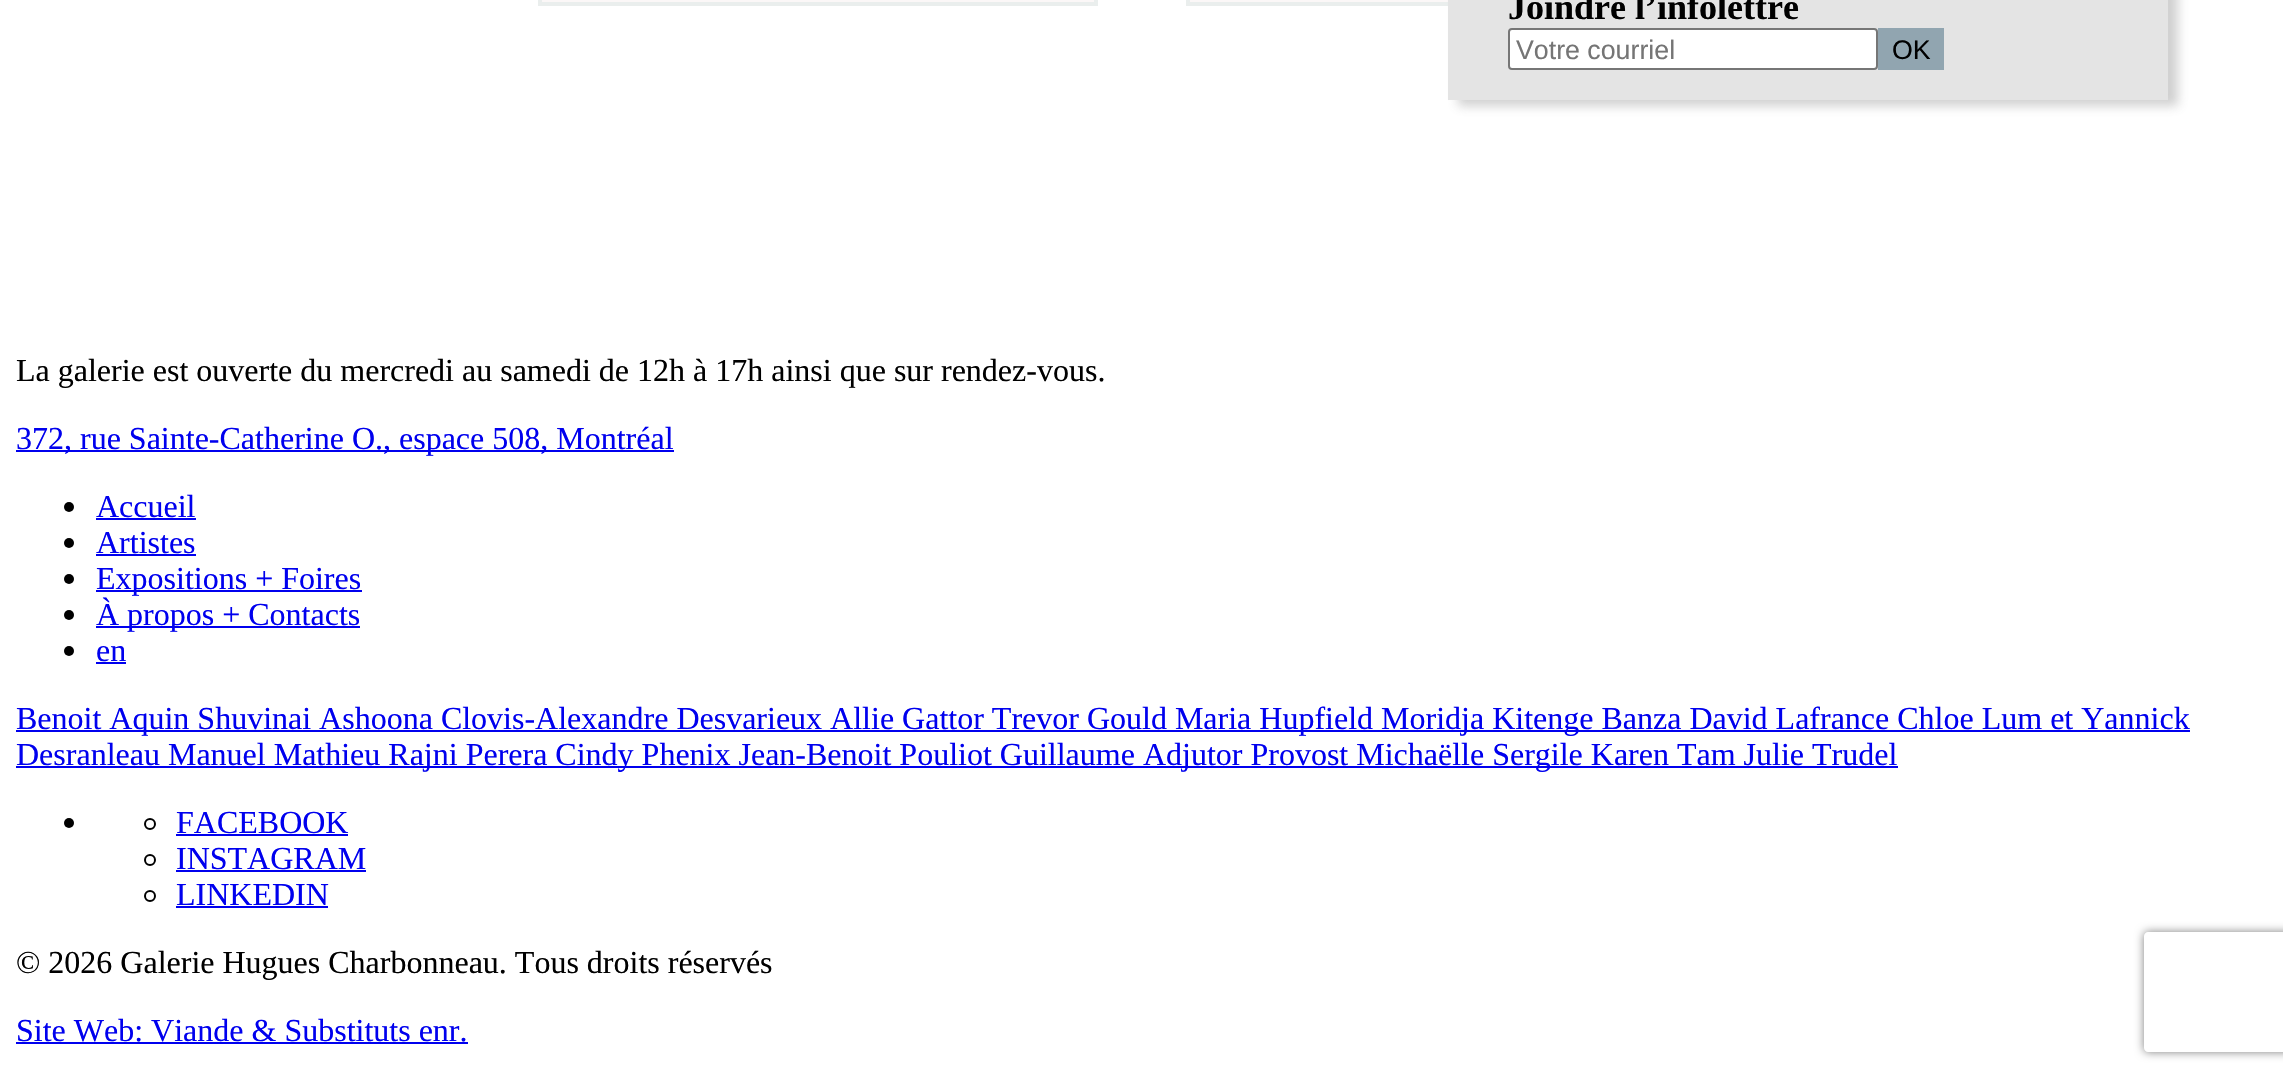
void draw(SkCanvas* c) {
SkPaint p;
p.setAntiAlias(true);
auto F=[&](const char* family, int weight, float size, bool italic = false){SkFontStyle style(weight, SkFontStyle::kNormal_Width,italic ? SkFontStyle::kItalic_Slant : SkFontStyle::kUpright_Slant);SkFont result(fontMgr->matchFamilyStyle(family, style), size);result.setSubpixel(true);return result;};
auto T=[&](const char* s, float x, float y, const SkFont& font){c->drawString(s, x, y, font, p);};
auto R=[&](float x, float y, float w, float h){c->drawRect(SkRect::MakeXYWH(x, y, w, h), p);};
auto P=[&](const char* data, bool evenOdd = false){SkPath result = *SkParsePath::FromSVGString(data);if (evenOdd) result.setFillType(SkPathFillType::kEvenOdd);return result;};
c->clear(0xffffffff);
p.setColor(0xfffbf7f7);
c->drawRect(SkRect::MakeXYWH(540,-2,556,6),p);
p.setStroke(true);
p.setStrokeWidth(4);
p.setColor(0xffeaeeed);
c->drawRect(SkRect::MakeXYWH(540,-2,556,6),p);
p.setStroke(false);
p.setColor(0xfffbf7f7);
R(1186,0,262,2);
p.setStroke(true);
p.setColor(0xffeaeeed);
c->drawRect(SkRect::MakeXYWH(1188,-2,556,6),p);
p.setStroke(false);
p.setColor(0x4d646464);
p.setMaskFilter(SkMaskFilter::MakeBlur(kNormal_SkBlurStyle, 5));
c->drawRect(SkRect::MakeXYWH(1458,-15,720,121),p);
p.setMaskFilter(nullptr);
p.setColor(0xffe4e4e4);
R(1448,0,720,100);
auto f1 = F("Liberation Serif",700,36);
p.setColor(0xff000000);
T("Joindre l’infolettre",1508,19,f1);
p.setColor(0xffffffff);
c->drawRoundRect(SkRect::MakeXYWH(1509,29,368,40),3,3,p);
p.setStroke(true);
p.setStrokeWidth(2);
p.setColor(0xff767676);
c->drawRoundRect(SkRect::MakeXYWH(1509,29,368,40),3,3,p);
auto f2 = F("Liberation Sans",400,26.75);
p.setStroke(false);
p.setColor(0xff757575);
T("Votre courriel",1516,59,f2);
p.setColor(0xff91a5b0);
R(1878,28,66,42);
p.setColor(0xff000000);
T("OK",1892,59,f2);
auto f3 = F("Liberation Serif",400,32);
T("La galerie est ouverte du mercredi au samedi de 12h à 17h ainsi que sur rendez-vous.",16,381,f3);
p.setColor(0xff0000ee);
R(16,450,658,2);
T("372, rue Sainte-Catherine O., espace 508, Montréal",16,449,f3);
p.setColor(0xff000000);
c->drawCircle(69,507,5,p);
p.setColor(0xff0000ee);
T("Accueil",96,517,f3);
R(96,518,100,2);
p.setColor(0xff000000);
c->drawCircle(69,543,5,p);
p.setColor(0xff0000ee);
T("Artistes",96,553,f3);
R(96,554,100,2);
p.setColor(0xff000000);
c->drawCircle(69,579,5,p);
p.setColor(0xff0000ee);
R(96,590,266,2);
T("Expositions + Foires",96,589,f3);
p.setColor(0xff000000);
c->drawCircle(69,615,5,p);
p.setColor(0xff0000ee);
R(96,626,264,2);
T("À propos + Contacts",96,625,f3);
p.setColor(0xff000000);
c->drawCircle(69,651,5,p);
p.setColor(0xff0000ee);
T("en",96,661,f3);
R(96,662,30,2);
R(16,730,2174,2);
T("Benoit Aquin Shuvinai Ashoona Clovis-Alexandre Desvarieux Allie Gattor Trevor Gould Maria Hupfield Moridja Kitenge Banza David Lafrance Chloe Lum et Yannick",16,729,f3);
R(16,766,1882,2);
T("Desranleau Manuel Mathieu Rajni Perera Cindy Phenix Jean-Benoit Pouliot Guillaume Adjutor Provost Michaëlle Sergile Karen Tam Julie Trudel",16,765,f3);
p.setColor(0xff000000);
c->drawCircle(69,823,5,p);
p.setStroke(true);
c->drawCircle(150,824,5,p);
p.setStroke(false);
p.setColor(0xff0000ee);
T("FACEBOOK",176,833,f3);
R(176,834,172,2);
p.setStroke(true);
p.setColor(0xff000000);
c->drawCircle(150,860,5,p);
p.setStroke(false);
p.setColor(0xff0000ee);
T("INSTAGRAM",176,869,f3);
R(176,870,190,2);
p.setStroke(true);
p.setColor(0xff000000);
c->drawCircle(150,896,5,p);
p.setStroke(false);
p.setColor(0xff0000ee);
T("LINKEDIN",176,905,f3);
R(176,906,152,2);
p.setColor(0xff000000);
T("© 2026 Galerie Hugues Charbonneau. Tous droits réservés",16,973,f3);
p.setColor(0xff0000ee);
T("Site Web: Viande & Substituts enr.",16,1041,f3);
R(16,1042,452,2);
c->save();
c->clipPath(P("M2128 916h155v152h-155zm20 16h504c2 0 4 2 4 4v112c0 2-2 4-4 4h-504c-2 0-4-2-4-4v-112c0-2 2-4 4-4z",true),true);
p.setColor(0xff808080);
p.setMaskFilter(SkMaskFilter::MakeBlur(kNormal_SkBlurStyle, 5));
c->drawRoundRect(SkRect::MakeXYWH(2144,932,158,120),4,4,p);
p.setMaskFilter(nullptr);
c->restore();
}
